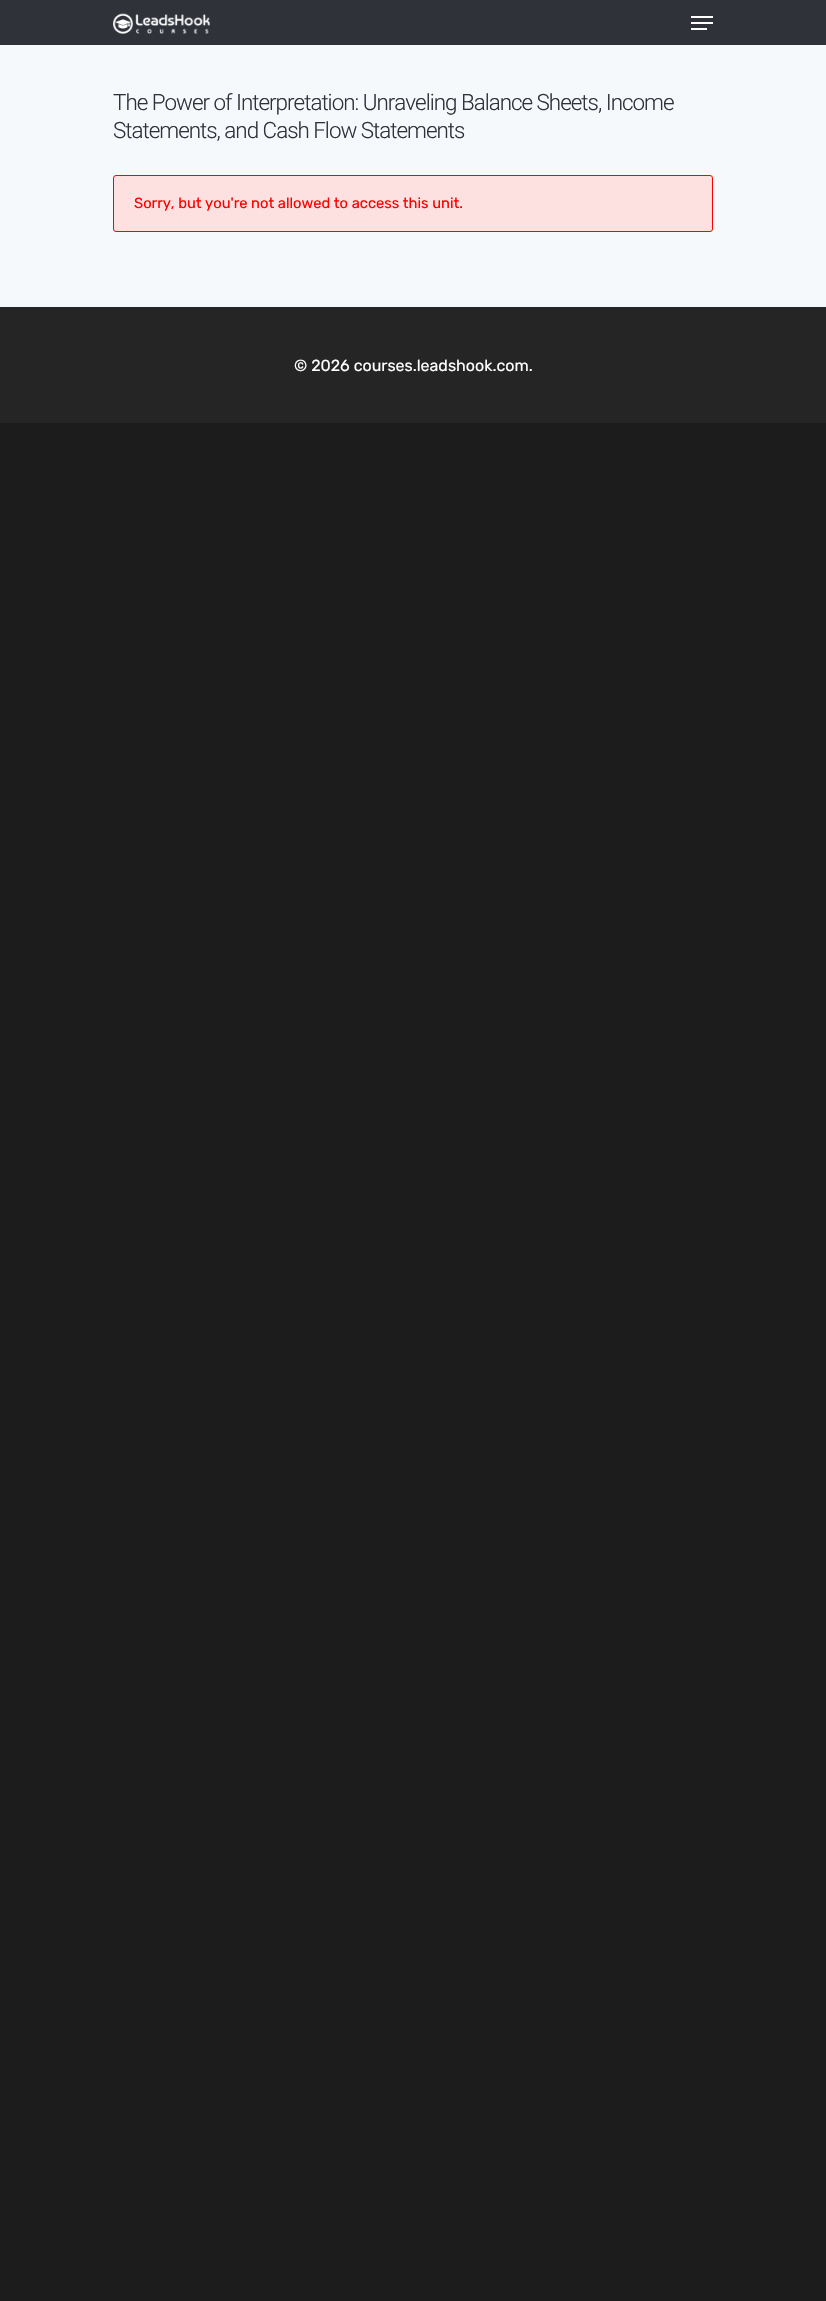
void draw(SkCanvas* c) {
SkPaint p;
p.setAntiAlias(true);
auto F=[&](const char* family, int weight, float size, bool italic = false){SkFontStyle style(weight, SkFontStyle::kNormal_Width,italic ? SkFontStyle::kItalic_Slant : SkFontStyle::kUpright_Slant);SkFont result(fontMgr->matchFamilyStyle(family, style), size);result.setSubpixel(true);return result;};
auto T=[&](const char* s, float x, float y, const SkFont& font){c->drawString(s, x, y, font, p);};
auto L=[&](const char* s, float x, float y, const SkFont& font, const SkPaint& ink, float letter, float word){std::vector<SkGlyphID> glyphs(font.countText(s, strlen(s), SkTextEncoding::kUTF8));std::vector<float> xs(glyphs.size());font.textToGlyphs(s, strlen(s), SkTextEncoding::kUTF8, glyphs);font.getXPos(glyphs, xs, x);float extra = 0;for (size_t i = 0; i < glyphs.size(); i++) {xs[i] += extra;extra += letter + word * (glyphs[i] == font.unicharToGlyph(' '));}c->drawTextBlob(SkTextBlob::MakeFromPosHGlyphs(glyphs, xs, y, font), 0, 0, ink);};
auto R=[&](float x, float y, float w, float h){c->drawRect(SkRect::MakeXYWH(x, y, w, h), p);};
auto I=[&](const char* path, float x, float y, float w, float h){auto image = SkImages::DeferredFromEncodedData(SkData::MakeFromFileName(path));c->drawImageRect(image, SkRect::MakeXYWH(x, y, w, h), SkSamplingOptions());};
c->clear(0xff1c1c1c);
p.setColor(0xfff6f9fb);
R(0,45,826,262);
p.setColor(0xff2f3239);
R(0,0,826,45);
I("1.png",113,13,97,21);
p.setColor(0xffffffff);
R(691,16,22,2);
R(691,28,16,2);
R(691,22,22,2);
auto f1 = F("Roboto",300,22.4);
p.setColor(0xff2f3239);
L("The Power of Interpretation: Unraveling Balance Sheets, Income",113,110,f1,p,-1,0);
L("Statements, and Cash Flow Statements",113,138,f1,p,-1,0);
p.setColor(0xfffde0e0);
c->drawRoundRect(SkRect::MakeXYWH(113.5,175.5,599,56),2.5,2.5,p);
p.setStroke(true);
p.setStrokeWidth(1);
p.setColor(0xffff0000);
c->drawRoundRect(SkRect::MakeXYWH(113.5,175.5,599,56),2.5,2.5,p);
auto f2 = F("Rubik",300,14.7);
p.setStroke(false);
T("Sorry, but you're not allowed to access this unit.",134,208,f2);
p.setColor(0xff252525);
R(0,307,826,116);
auto f3 = F("Rubik",300,16);
p.setColor(0xffffffff);
T("© 2026 courses.leadshook.com.",294,371,f3);
}
